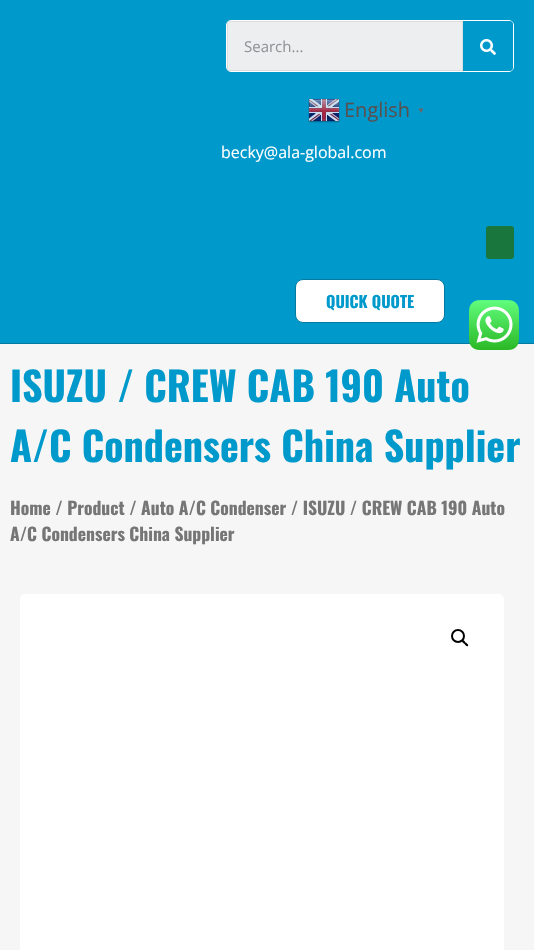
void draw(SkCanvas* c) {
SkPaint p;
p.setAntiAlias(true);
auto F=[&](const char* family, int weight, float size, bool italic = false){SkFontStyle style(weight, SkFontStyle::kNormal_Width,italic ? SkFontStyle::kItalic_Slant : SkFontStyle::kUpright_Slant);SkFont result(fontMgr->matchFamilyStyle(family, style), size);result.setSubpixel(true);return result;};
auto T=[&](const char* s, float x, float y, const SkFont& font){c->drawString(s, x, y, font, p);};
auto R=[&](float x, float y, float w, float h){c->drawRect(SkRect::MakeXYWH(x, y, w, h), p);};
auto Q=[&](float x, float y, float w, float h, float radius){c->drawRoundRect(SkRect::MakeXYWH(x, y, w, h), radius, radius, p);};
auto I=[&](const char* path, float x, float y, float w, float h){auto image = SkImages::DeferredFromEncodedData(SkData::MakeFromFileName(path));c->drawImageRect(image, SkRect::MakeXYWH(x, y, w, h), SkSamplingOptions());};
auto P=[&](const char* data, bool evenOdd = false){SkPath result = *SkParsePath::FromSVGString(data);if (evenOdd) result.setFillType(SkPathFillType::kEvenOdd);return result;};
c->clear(0xfff6f6f6);
p.setColor(0xff0099cc);
R(0,0,534,343);
p.setColor(0xff007aa3);
R(0,343,534,1);
p.setStroke(true);
p.setStrokeWidth(1);
p.setColor(0xffffffff);
c->drawRoundRect(SkRect::MakeXYWH(226.5,20.5,287,51),4.5,4.5,p);
p.setStroke(false);
p.setColor(0xffeceeef);
Q(227,21,286,50,3);
p.setColor(0xffdddddd);
c->drawPath(P("M230 21c-2 0-3 1-3 3v44c0 2 1 3 3 3h233v-50zm-2 1v48h234v-48z",true),p);
auto f1 = F("Open Sans",400,15);
p.setColor(0xff919597);
T("Search...",244,52,f1);
p.setColor(0xff0099cc);
c->drawPath(P("M463 21h47c1.5 0 3 1.5 3 3v44c0 1.5-1.5 3-3 3h-47z"),p);
I("1.png",480,39,16,16);
I("2.png",308,98,32,25);
auto f2 = F("Open Sans",400,20);
p.setColor(0xff595050);
T("English",344,117,f2);
auto f3 = F("Liberation Sans",700,8);
p.setColor(0xff666666);
T("▼",417,113,f3);
auto f4 = F("Open Sans",400,16);
p.setColor(0xffffffff);
T("becky@ala-global.com",221,158,f4);
p.setColor(0xff19763d);
Q(486,226,28,33,3);
p.setColor(0xffffffff);
c->drawRoundRect(SkRect::MakeXYWH(295.5,279.5,149,43),7.5,7.5,p);
p.setStroke(true);
p.setColor(0xff007aa3);
c->drawRoundRect(SkRect::MakeXYWH(295.5,279.5,149,43),7.5,7.5,p);
auto f5 = F("Oswald",700,16);
p.setStroke(false);
p.setColor(0xff0099cc);
T("QUICK QUOTE",326,308,f5);
I("3.png",469,300,50,50);
auto f6 = F("Oswald",700,40);
T("ISUZU / CREW CAB 190 Auto",10,402,f6);
T("A/C Condensers China Supplier",10,462,f6);
auto f7 = F("Oswald",700,17.6);
p.setColor(0xff767676);
T("Home / Product / Auto A/C Condenser / ISUZU / CREW CAB 190 Auto",10,515,f7);
T("A/C Condensers China Supplier",10,541,f7);
p.setColor(0xffffffff);
Q(20,594,484,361,5);
p.setStroke(true);
p.setStrokeWidth(2);
p.setColor(0xff000000);
c->drawCircle(458,636,6,p);
p.setStroke(false);
c->drawPath(P("M462 640.5c1.5-1.5 3 1.5 3.5 2c1 .5 3.5 2.5 2.5 3.5c-1.5 1-3-1.5-3.5-2c-1-1-3.5-2.5-2.5-3.5z"),p);
}
